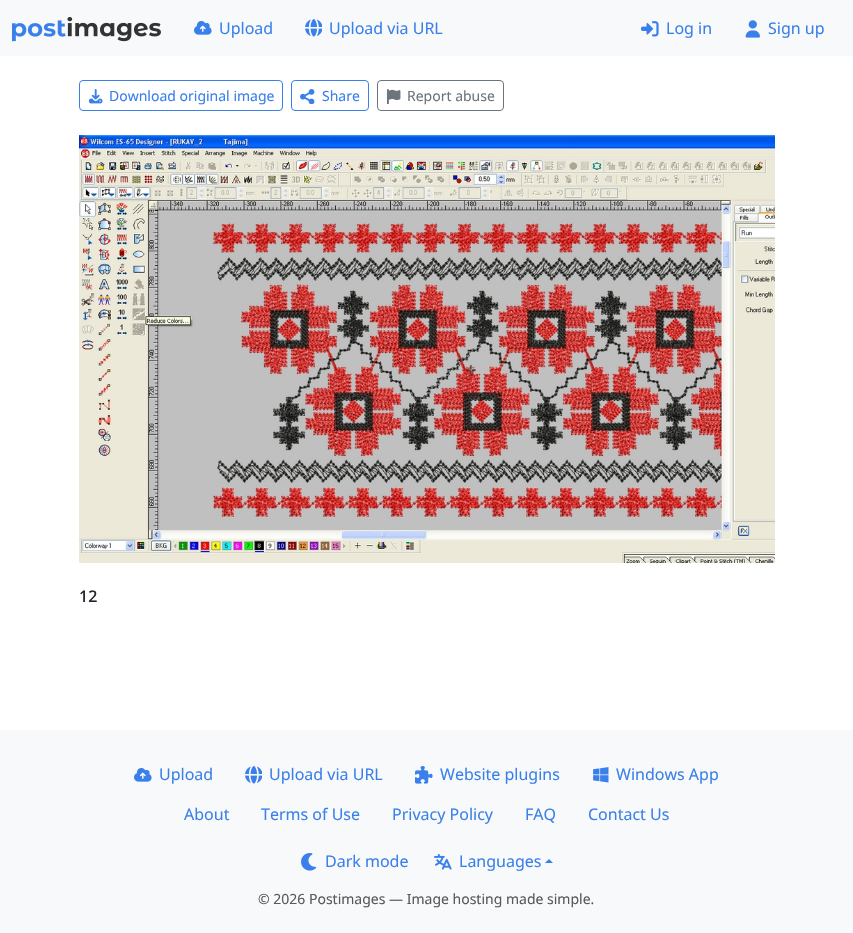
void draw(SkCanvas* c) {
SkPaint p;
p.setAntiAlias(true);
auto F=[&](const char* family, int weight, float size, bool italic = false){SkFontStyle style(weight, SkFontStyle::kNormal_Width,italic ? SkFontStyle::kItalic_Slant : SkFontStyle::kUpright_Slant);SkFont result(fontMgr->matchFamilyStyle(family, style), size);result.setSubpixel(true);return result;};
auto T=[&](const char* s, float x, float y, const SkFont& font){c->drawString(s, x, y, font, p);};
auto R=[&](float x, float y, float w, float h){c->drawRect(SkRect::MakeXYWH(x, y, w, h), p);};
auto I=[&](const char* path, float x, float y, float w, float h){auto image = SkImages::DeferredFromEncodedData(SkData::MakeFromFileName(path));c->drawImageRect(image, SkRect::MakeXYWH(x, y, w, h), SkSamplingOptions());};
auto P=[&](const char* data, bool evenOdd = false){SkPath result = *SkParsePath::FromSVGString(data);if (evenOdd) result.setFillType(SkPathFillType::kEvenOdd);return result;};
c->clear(0xffffffff);
p.setColor(0xfff8f9fa);
R(0,0,853,56);
I("1.png",12,17,149,25);
I("2.png",194,21,18,14);
auto f1 = F("Noto Sans",400,16);
p.setColor(0xff3a80ea);
T("Upload",219,34,f1);
I("3.png",305,19,17,18);
T("Upload via URL",329,34,f1);
I("4.png",641,21,18,16);
T("Log in",666,34,f1);
I("5.png",745,20,15,18);
T("Sign up",768,34,f1);
p.setStroke(true);
p.setStrokeWidth(1);
c->drawRoundRect(SkRect::MakeXYWH(79.5,80.5,203,30),3.5,3.5,p);
I("6.png",88,89,15,15);
auto f2 = F("Noto Sans",400,14);
p.setStroke(false);
T("Download original image",109,101,f2);
p.setStroke(true);
c->drawRoundRect(SkRect::MakeXYWH(291.5,80.5,77,30),3.5,3.5,p);
I("7.png",300,89,15,15);
p.setStroke(false);
T("Share",322,101,f2);
p.setStroke(true);
p.setColor(0xff6c757d);
c->drawRoundRect(SkRect::MakeXYWH(377.5,80.5,126,30),3.5,3.5,p);
I("8.png",386,89,15,15);
p.setStroke(false);
T("Report abuse",407,101,f2);
I("9.png",79,135,696,428);
auto f3 = F("Noto Sans",500,16);
p.setColor(0xff212529);
T("12",79,602,f3);
p.setColor(0xfff8f9fa);
R(0,730,853,203);
I("2.png",134,768,18,14);
p.setColor(0xff3a80ea);
T("Upload",159,780,f1);
I("3.png",245,766,17,18);
T("Upload via URL",269,780,f1);
I("10.png",415,766,18,18);
T("Website plugins",440,780,f1);
I("11.png",593,767,16,16);
T("Windows App",616,780,f1);
T("About",184,820,f1);
T("Terms of Use",261,820,f1);
T("Privacy Policy",392,820,f1);
T("FAQ",525,820,f1);
T("Contact Us",588,820,f1);
I("12.png",301,853,16,18);
T("Dark mode",325,867,f1);
I("13.png",434,854,18,16);
T("Languages",459,867,f1);
c->drawPath(P("M553 863h-8l4-4z"),p);
p.setColor(0xff575a5d);
T("© 2026 Postimages — Image hosting made simple.",258,904,f2);
}
